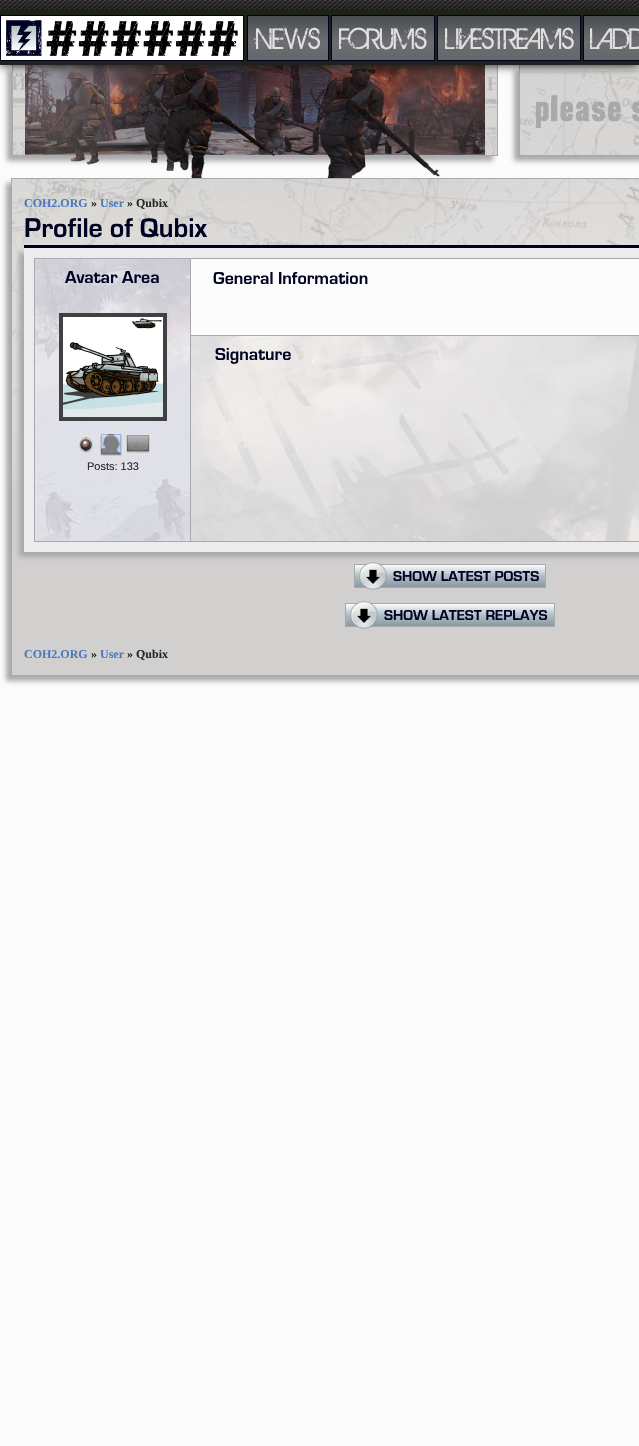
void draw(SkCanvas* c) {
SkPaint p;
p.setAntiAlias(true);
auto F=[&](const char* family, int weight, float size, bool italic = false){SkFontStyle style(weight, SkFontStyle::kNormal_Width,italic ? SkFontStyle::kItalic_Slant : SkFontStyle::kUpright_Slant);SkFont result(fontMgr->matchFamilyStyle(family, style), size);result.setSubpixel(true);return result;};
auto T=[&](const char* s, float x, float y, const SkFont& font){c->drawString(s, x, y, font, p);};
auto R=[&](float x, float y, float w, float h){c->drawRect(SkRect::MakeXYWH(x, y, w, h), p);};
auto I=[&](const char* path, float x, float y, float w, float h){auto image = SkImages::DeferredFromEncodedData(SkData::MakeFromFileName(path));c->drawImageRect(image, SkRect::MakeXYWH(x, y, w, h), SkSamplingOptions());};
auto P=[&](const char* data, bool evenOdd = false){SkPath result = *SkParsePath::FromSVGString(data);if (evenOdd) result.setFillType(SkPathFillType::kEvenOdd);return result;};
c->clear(0xffffffff);
I("1.png",0,0,639,65);
p.setColor(0xfffcfcfc);
R(0,65,639,1381);
p.setColor(0xffa7a9ac);
p.setMaskFilter(SkMaskFilter::MakeBlur(kNormal_SkBlurStyle, 2.5));
c->drawRect(SkRect::MakeXYWH(7,70,486,91),p);
p.setMaskFilter(nullptr);
I("3.png",13,65,484,90);
R(497,65,1,91);
R(12,65,1,10);
p.setMaskFilter(SkMaskFilter::MakeBlur(kNormal_SkBlurStyle, 2.5));
c->drawRect(SkRect::MakeXYWH(6,183,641,498),p);
p.setMaskFilter(nullptr);
I("4.png",25,65,460,113);
p.setMaskFilter(SkMaskFilter::MakeBlur(kNormal_SkBlurStyle, 2.5));
c->drawRect(SkRect::MakeXYWH(514,70,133,91),p);
p.setMaskFilter(nullptr);
I("5.png",520,65,119,90);
R(519,65,1,10);
c->save();
c->clipPath(P("M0 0h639v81h-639zm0 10h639v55h-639z",true),true);
p.setColor(0xff131313);
p.setMaskFilter(SkMaskFilter::MakeBlur(kNormal_SkBlurStyle, 5));
c->drawRect(SkRect::MakeXYWH(0,10,639,55),p);
p.setMaskFilter(nullptr);
c->restore();
p.setColor(0xf21e2019);
R(0,10,639,55);
p.setStroke(true);
p.setStrokeWidth(1);
p.setColor(0xff000222);
c->drawRect(SkRect::MakeXYWH(.5,15.5,243,45),p);
I("2.png",1,16,242,44);
c->drawRect(SkRect::MakeXYWH(247.5,15.5,81,45),p);
p.setStroke(false);
{
const SkColor colors[] = {0xff4a4e50,0xff6d6e71,0xff63686a};
const float stops[] = {0,.6,1};
const SkPoint ends[] = {{248,16}, {248,60}};
p.setShader(SkGradientShader::MakeLinear(ends, colors, stops, 3, SkTileMode::kClamp));
p.setAlpha(255);
}
R(248,16,80,44);
auto f1 = F("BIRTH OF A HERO",400,32);
p.setShader(nullptr);
p.setColor(0xffe1e1e1);
T("NEWS",256,49,f1);
p.setStroke(true);
p.setColor(0xff000222);
c->drawRect(SkRect::MakeXYWH(331.5,15.5,103,45),p);
p.setStroke(false);
{
const SkColor colors[] = {0xff4a4e50,0xff6d6e71,0xff63686a};
const float stops[] = {0,.6,1};
const SkPoint ends[] = {{332,16}, {332,60}};
p.setShader(SkGradientShader::MakeLinear(ends, colors, stops, 3, SkTileMode::kClamp));
p.setAlpha(255);
}
R(332,16,102,44);
p.setShader(nullptr);
p.setColor(0xffe1e1e1);
T("FORUMS",339,49,f1);
p.setStroke(true);
p.setColor(0xff000222);
c->drawRect(SkRect::MakeXYWH(437.5,15.5,143,45),p);
p.setStroke(false);
{
const SkColor colors[] = {0xff4a4e50,0xff6d6e71,0xff63686a};
const float stops[] = {0,.6,1};
const SkPoint ends[] = {{438,16}, {438,60}};
p.setShader(SkGradientShader::MakeLinear(ends, colors, stops, 3, SkTileMode::kClamp));
p.setAlpha(255);
}
R(438,16,142,44);
p.setShader(nullptr);
p.setColor(0xffe1e1e1);
T("LIVESTREAMS",445,49,f1);
p.setStroke(true);
p.setColor(0xff000222);
c->drawRect(SkRect::MakeXYWH(583.5,15.5,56,45),p);
p.setStroke(false);
{
const SkColor colors[] = {0xff4a4e50,0xff6d6e71,0xff63686a};
const float stops[] = {0,.6,1};
const SkPoint ends[] = {{584,16}, {584,60}};
p.setShader(SkGradientShader::MakeLinear(ends, colors, stops, 3, SkTileMode::kClamp));
p.setAlpha(255);
}
R(584,16,55,44);
p.setShader(nullptr);
p.setColor(0xffe1e1e1);
T("LADD",590,49,f1);
p.setColor(0xffa7a9ac);
R(488,155,10,1);
p.setColor(0xffd2d0cf);
R(12,487,627,188);
I("6.png",12,179,627,308);
p.setStroke(true);
p.setColor(0xffa7a9ac);
c->drawRect(SkRect::MakeXYWH(11.5,178.5,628,497),p);
auto f2 = F("Liberation Serif",700,12);
p.setStroke(false);
p.setColor(0xff4b79be);
T("COH2.ORG",24,207,f2);
p.setColor(0xff282828);
T("»",91,207,f2);
p.setColor(0xff4b79be);
T("User",100,207,f2);
p.setColor(0xff282828);
T("» Qubix",127,207,f2);
p.setColor(0xffa7a9ac);
p.setMaskFilter(SkMaskFilter::MakeBlur(kNormal_SkBlurStyle, 2.5));
c->drawRect(SkRect::MakeXYWH(19,253,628,304),p);
p.setMaskFilter(nullptr);
p.setColor(0xff000222);
R(24,245,615,3);
auto f3 = F("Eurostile",700,28);
T("Profile of Qubix",24,237,f3);
p.setColor(0xffedeced);
R(24,248,615,304);
I("7.png",35,259,155,282);
p.setStroke(true);
p.setColor(0xffa7a9ac);
c->drawRect(SkRect::MakeXYWH(34.5,258.5,156,283),p);
auto f4 = F("Eurostile",700,18);
p.setStroke(false);
p.setColor(0xff000222);
T("Avatar Area",65,283,f4);
p.setColor(0xff414042);
R(59,313,108,108);
I("8.png",63,317,100,100);
I("9.png",79,437,14,16);
I("10.png",100,434,22,22);
I("11.png",126,435,24,18);
auto f5 = F("Liberation Sans",400,11);
p.setColor(0xff282828);
T("Posts: 133",87,470,f5);
p.setColor(0xfffcfcfc);
R(191,259,448,76);
p.setColor(0xffa7a9ac);
R(191,258,448,1);
R(191,541,448,1);
p.setColor(0xff000222);
T("General Information",213,284,f4);
I("12.png",191,336,448,205);
p.setColor(0xffa7a9ac);
R(191,335,448,1);
p.setColor(0xff000222);
T("Signature",215,360,f4);
{
const SkColor colors[] = {0xfffcfcfc,0xffb1bfc7,0xff8b98a0};
const float stops[] = {0,.5,1};
const SkPoint ends[] = {{355,565}, {355,587}};
p.setShader(SkGradientShader::MakeLinear(ends, colors, stops, 3, SkTileMode::kClamp));
p.setAlpha(255);
}
R(355,565,190,22);
p.setStroke(true);
p.setShader(nullptr);
p.setColor(0xffa7a9ac);
c->drawRect(SkRect::MakeXYWH(354.5,564.5,191,23),p);
I("13.png",359,562,28,28);
auto f6 = F("Eurostile",700,15);
p.setStroke(false);
p.setColor(0xff000222);
T("SHOW LATEST POSTS",393,581,f6);
{
const SkColor colors[] = {0xfffcfcfc,0xffb1bfc7,0xff8b98a0};
const float stops[] = {0,.5,1};
const SkPoint ends[] = {{346,604}, {346,626}};
p.setShader(SkGradientShader::MakeLinear(ends, colors, stops, 3, SkTileMode::kClamp));
p.setAlpha(255);
}
R(346,604,208,22);
p.setStroke(true);
p.setShader(nullptr);
p.setColor(0xffa7a9ac);
c->drawRect(SkRect::MakeXYWH(345.5,603.5,209,23),p);
I("14.png",350,601,28,28);
p.setStroke(false);
p.setColor(0xff000222);
T("SHOW LATEST REPLAYS",384,620,f6);
p.setColor(0xff4b79be);
T("COH2.ORG",24,658,f2);
p.setColor(0xff282828);
T("»",91,658,f2);
p.setColor(0xff4b79be);
T("User",100,658,f2);
p.setColor(0xff282828);
T("» Qubix",127,658,f2);
}
